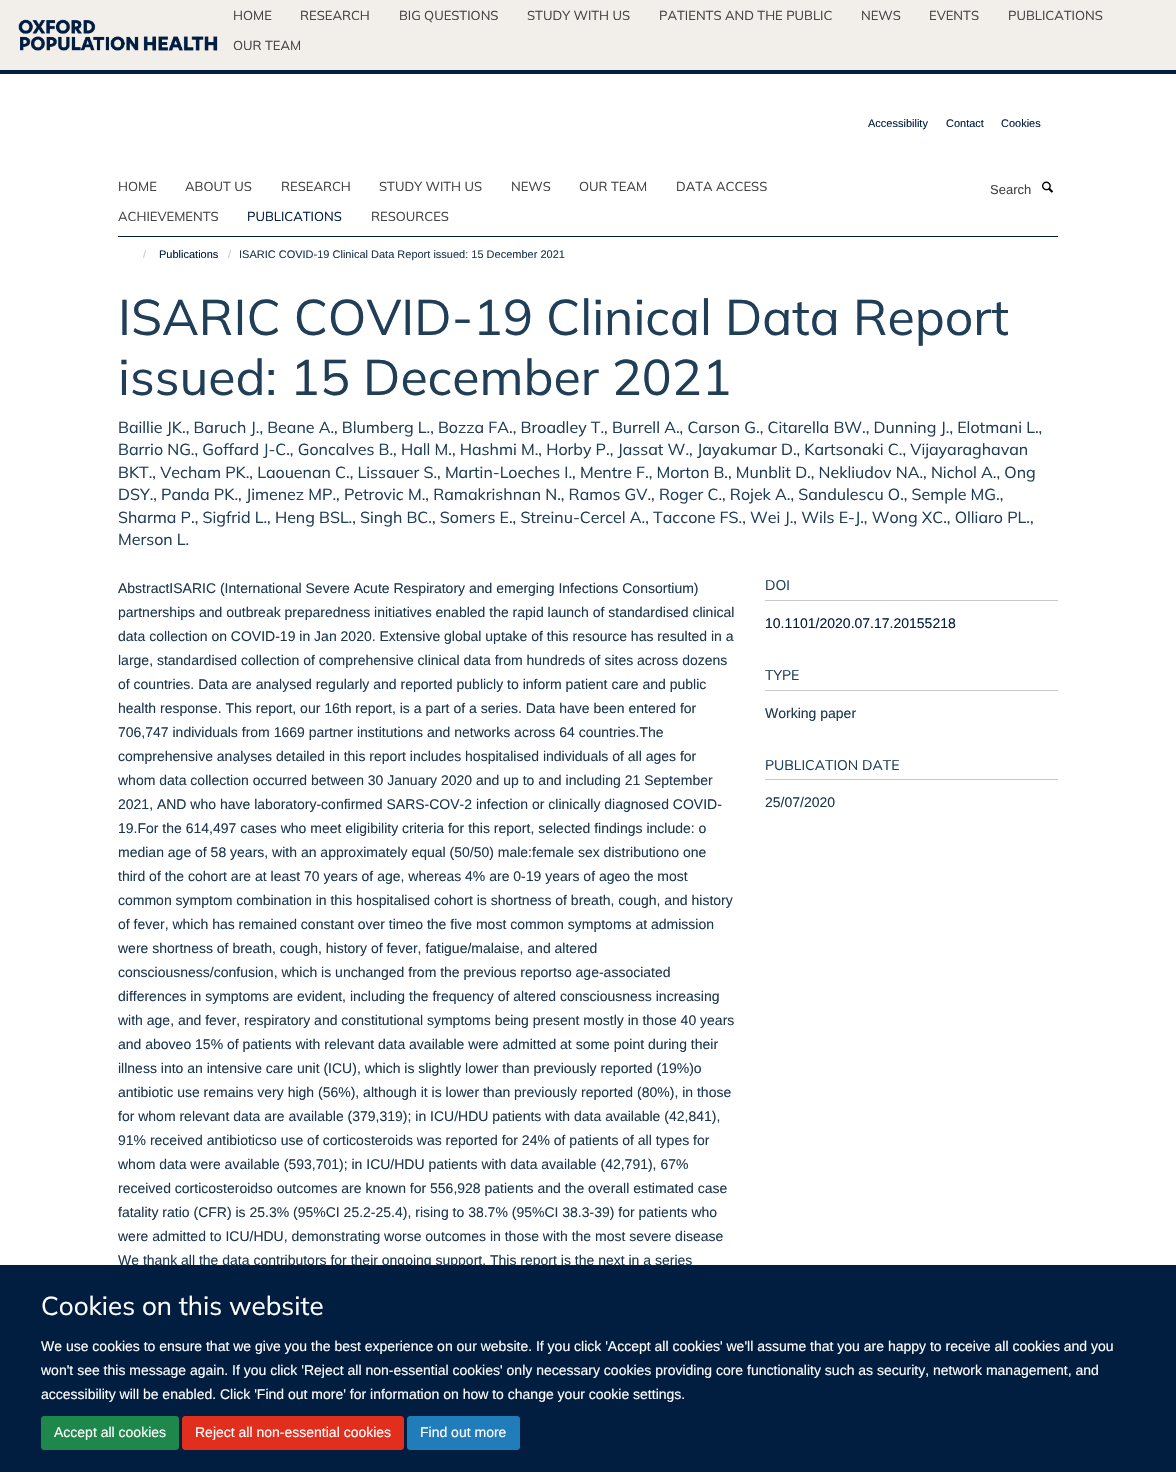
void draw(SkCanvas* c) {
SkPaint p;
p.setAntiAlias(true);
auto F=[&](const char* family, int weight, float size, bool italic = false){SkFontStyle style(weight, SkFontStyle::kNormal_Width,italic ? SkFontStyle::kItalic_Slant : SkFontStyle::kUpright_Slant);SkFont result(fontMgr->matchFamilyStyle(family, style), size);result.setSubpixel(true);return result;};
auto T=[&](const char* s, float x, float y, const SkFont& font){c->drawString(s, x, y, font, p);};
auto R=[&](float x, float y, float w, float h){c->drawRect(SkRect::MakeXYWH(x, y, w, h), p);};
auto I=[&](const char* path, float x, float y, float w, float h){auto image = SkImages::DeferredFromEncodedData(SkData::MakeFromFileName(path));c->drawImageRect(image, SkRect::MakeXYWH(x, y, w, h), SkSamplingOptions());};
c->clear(0xffffffff);
p.setColor(0xfff2efeb);
R(0,0,1176,70);
p.setColor(0xff011e41);
R(0,70,1176,4);
I("1.png",18,19,200,32);
auto f1 = F("Mulish",400,13);
p.setColor(0xff444444);
T("HOME",233,20,f1);
T("RESEARCH",300,20,f1);
T("BIG QUESTIONS",399,20,f1);
T("STUDY WITH US",527,20,f1);
T("PATIENTS AND THE PUBLIC",659,20,f1);
T("NEWS",861,20,f1);
T("EVENTS",929,20,f1);
T("PUBLICATIONS",1008,20,f1);
T("OUR TEAM",233,50,f1);
auto f2 = F("Liberation Sans",400,11);
p.setColor(0xff011e41);
T("Accessibility",868,127,f2);
T("Contact",946,127,f2);
T("Cookies",1001,127,f2);
R(118,236,940,1);
p.setColor(0xff444444);
T("HOME",118,191,f1);
T("ABOUT US",185,191,f1);
T("RESEARCH",281,191,f1);
T("STUDY WITH US",379,191,f1);
T("NEWS",511,191,f1);
T("OUR TEAM",579,191,f1);
T("DATA ACCESS",676,191,f1);
T("ACHIEVEMENTS",118,221,f1);
p.setColor(0xff011e41);
T("PUBLICATIONS",247,221,f1);
p.setColor(0xff444444);
T("RESOURCES",371,221,f1);
auto f3 = F("Liberation Sans",400,13);
T("Search",990,194,f3);
I("2.png",1042,181,11,12);
p.setColor(0xffcccccc);
T("/",143,258,f2);
p.setColor(0xff011e41);
T("Publications",159,258,f2);
p.setColor(0xffcccccc);
T("/",228,258,f2);
p.setColor(0xff1d3850);
T("ISARIC COVID-19 Clinical Data Report issued: 15 December 2021",239,258,f2);
auto f4 = F("Mulish",400,50);
p.setColor(0xff203e58);
T("ISARIC COVID-19 Clinical Data Report",118,335,f4);
T("issued: 15 December 2021",118,395,f4);
auto f5 = F("Mulish",400,16);
T("Baillie JK., Baruch J., Beane A., Blumberg L., Bozza FA., Broadley T., Burrell A., Carson G., Citarella BW., Dunning J., Elotmani L.,",118,433,f5);
T("Barrio NG., Goffard J-C., Goncalves B., Hall M., Hashmi M., Horby P., Jassat W., Jayakumar D., Kartsonaki C., Vijayaraghavan",118,455,f5);
T("BKT., Vecham PK., Laouenan C., Lissauer S., Martin-Loeches I., Mentre F., Morton B., Munblit D., Nekliudov NA., Nichol A., Ong",118,478,f5);
T("DSY., Panda PK., Jimenez MP., Petrovic M., Ramakrishnan N., Ramos GV., Roger C., Rojek A., Sandulescu O., Semple MG.,",118,500,f5);
T("Sharma P., Sigfrid L., Heng BSL., Singh BC., Somers E., Streinu-Cercel A., Taccone FS., Wei J., Wils E-J., Wong XC., Olliaro PL.,",118,523,f5);
T("Merson L.",118,545,f5);
auto f6 = F("Liberation Sans",400,14);
p.setColor(0xff1d3850);
T("AbstractISARIC (International Severe Acute Respiratory and emerging Infections Consortium)",118,593,f6);
T("partnerships and outbreak preparedness initiatives enabled the rapid launch of standardised clinical",118,617,f6);
T("data collection on COVID-19 in Jan 2020. Extensive global uptake of this resource has resulted in a",118,641,f6);
T("large, standardised collection of comprehensive clinical data from hundreds of sites across dozens",118,665,f6);
T("of countries. Data are analysed regularly and reported publicly to inform patient care and public",118,689,f6);
T("health response. This report, our 16th report, is a part of a series. Data have been entered for",118,713,f6);
T("706,747 individuals from 1669 partner institutions and networks across 64 countries.The",118,737,f6);
T("comprehensive analyses detailed in this report includes hospitalised individuals of all ages for",118,761,f6);
T("whom data collection occurred between 30 January 2020 and up to and including 21 September",118,785,f6);
T("2021, AND who have laboratory-confirmed SARS-COV-2 infection or clinically diagnosed COVID-",118,809,f6);
T("19.For the 614,497 cases who meet eligibility criteria for this report, selected findings include: o",118,833,f6);
T("median age of 58 years, with an approximately equal (50/50) male:female sex distributiono one",118,857,f6);
T("third of the cohort are at least 70 years of age, whereas 4% are 0-19 years of ageo the most",118,881,f6);
T("common symptom combination in this hospitalised cohort is shortness of breath, cough, and history",118,905,f6);
T("of fever, which has remained constant over timeo the five most common symptoms at admission",118,929,f6);
T("were shortness of breath, cough, history of fever, fatigue/malaise, and altered",118,953,f6);
T("consciousness/confusion, which is unchanged from the previous reportso age-associated",118,977,f6);
T("differences in symptoms are evident, including the frequency of altered consciousness increasing",118,1001,f6);
T("with age, and fever, respiratory and constitutional symptoms being present mostly in those 40 years",118,1025,f6);
T("and aboveo 15% of patients with relevant data available were admitted at some point during their",118,1049,f6);
T("illness into an intensive care unit (ICU), which is slightly lower than previously reported (19%)o",118,1073,f6);
T("antibiotic use remains very high (56%), although it is lower than previously reported (80%), in those",118,1097,f6);
T("for whom relevant data are available (379,319); in ICU/HDU patients with data available (42,841),",118,1121,f6);
T("91% received antibioticso use of corticosteroids was reported for 24% of patients of all types for",118,1145,f6);
T("whom data were available (593,701); in ICU/HDU patients with data available (42,791), 67%",118,1169,f6);
T("received corticosteroidso outcomes are known for 556,928 patients and the overall estimated case",118,1193,f6);
T("fatality ratio (CFR) is 25.3% (95%CI 25.2-25.4), rising to 38.7% (95%CI 38.3-39) for patients who",118,1217,f6);
T("were admitted to ICU/HDU, demonstrating worse outcomes in those with the most severe disease",118,1241,f6);
T("We thank all the data contributors for their ongoing support. This report is the next in a series",118,1265,f6);
p.setColor(0xffc6cacf);
R(765,600,293,1);
auto f7 = F("Mulish",400,14);
p.setColor(0xff203e58);
T("DOI",765,590,f7);
p.setColor(0xff011e41);
T("10.1101/2020.07.17.20155218",765,628,f6);
p.setColor(0xffc6cacf);
R(765,690,293,1);
p.setColor(0xff203e58);
T("TYPE",765,680,f7);
p.setColor(0xff1d3850);
T("Working paper",765,718,f6);
p.setColor(0xffc6cacf);
R(765,779,293,1);
p.setColor(0xff203e58);
T("PUBLICATION DATE",765,770,f7);
p.setColor(0xff1d3850);
T("25/07/2020",765,807,f6);
p.setColor(0xff011e41);
R(0,1265,1176,207);
auto f8 = F("Mulish",400,26);
p.setColor(0xffffffff);
T("Cookies on this website",41,1315,f8);
T("We use cookies to ensure that we give you the best experience on our website. If you click 'Accept all cookies' we'll assume that you are happy to receive all cookies and you",41,1351,f6);
T("won't see this message again. If you click 'Reject all non-essential cookies' only necessary cookies providing core functionality such as security, network management, and",41,1375,f6);
T("accessibility will be enabled. Click 'Find out more' for information on how to change your cookie settings.",41,1399,f6);
p.setColor(0xff1e874b);
c->drawRoundRect(SkRect::MakeXYWH(41.5,1416.5,137,33),2.5,2.5,p);
p.setStroke(true);
p.setStrokeWidth(1);
c->drawRoundRect(SkRect::MakeXYWH(41.5,1416.5,137,33),2.5,2.5,p);
p.setStroke(false);
p.setColor(0xffffffff);
T("Accept all cookies",54,1437,f6);
p.setColor(0xffe22e1c);
c->drawRoundRect(SkRect::MakeXYWH(182.5,1416.5,221,33),2.5,2.5,p);
p.setStroke(true);
c->drawRoundRect(SkRect::MakeXYWH(182.5,1416.5,221,33),2.5,2.5,p);
p.setStroke(false);
p.setColor(0xffffffff);
T("Reject all non-essential cookies",195,1437,f6);
p.setColor(0xff217cba);
c->drawRoundRect(SkRect::MakeXYWH(407.5,1416.5,112,33),2.5,2.5,p);
p.setStroke(true);
c->drawRoundRect(SkRect::MakeXYWH(407.5,1416.5,112,33),2.5,2.5,p);
p.setStroke(false);
p.setColor(0xffffffff);
T("Find out more",420,1437,f6);
}
